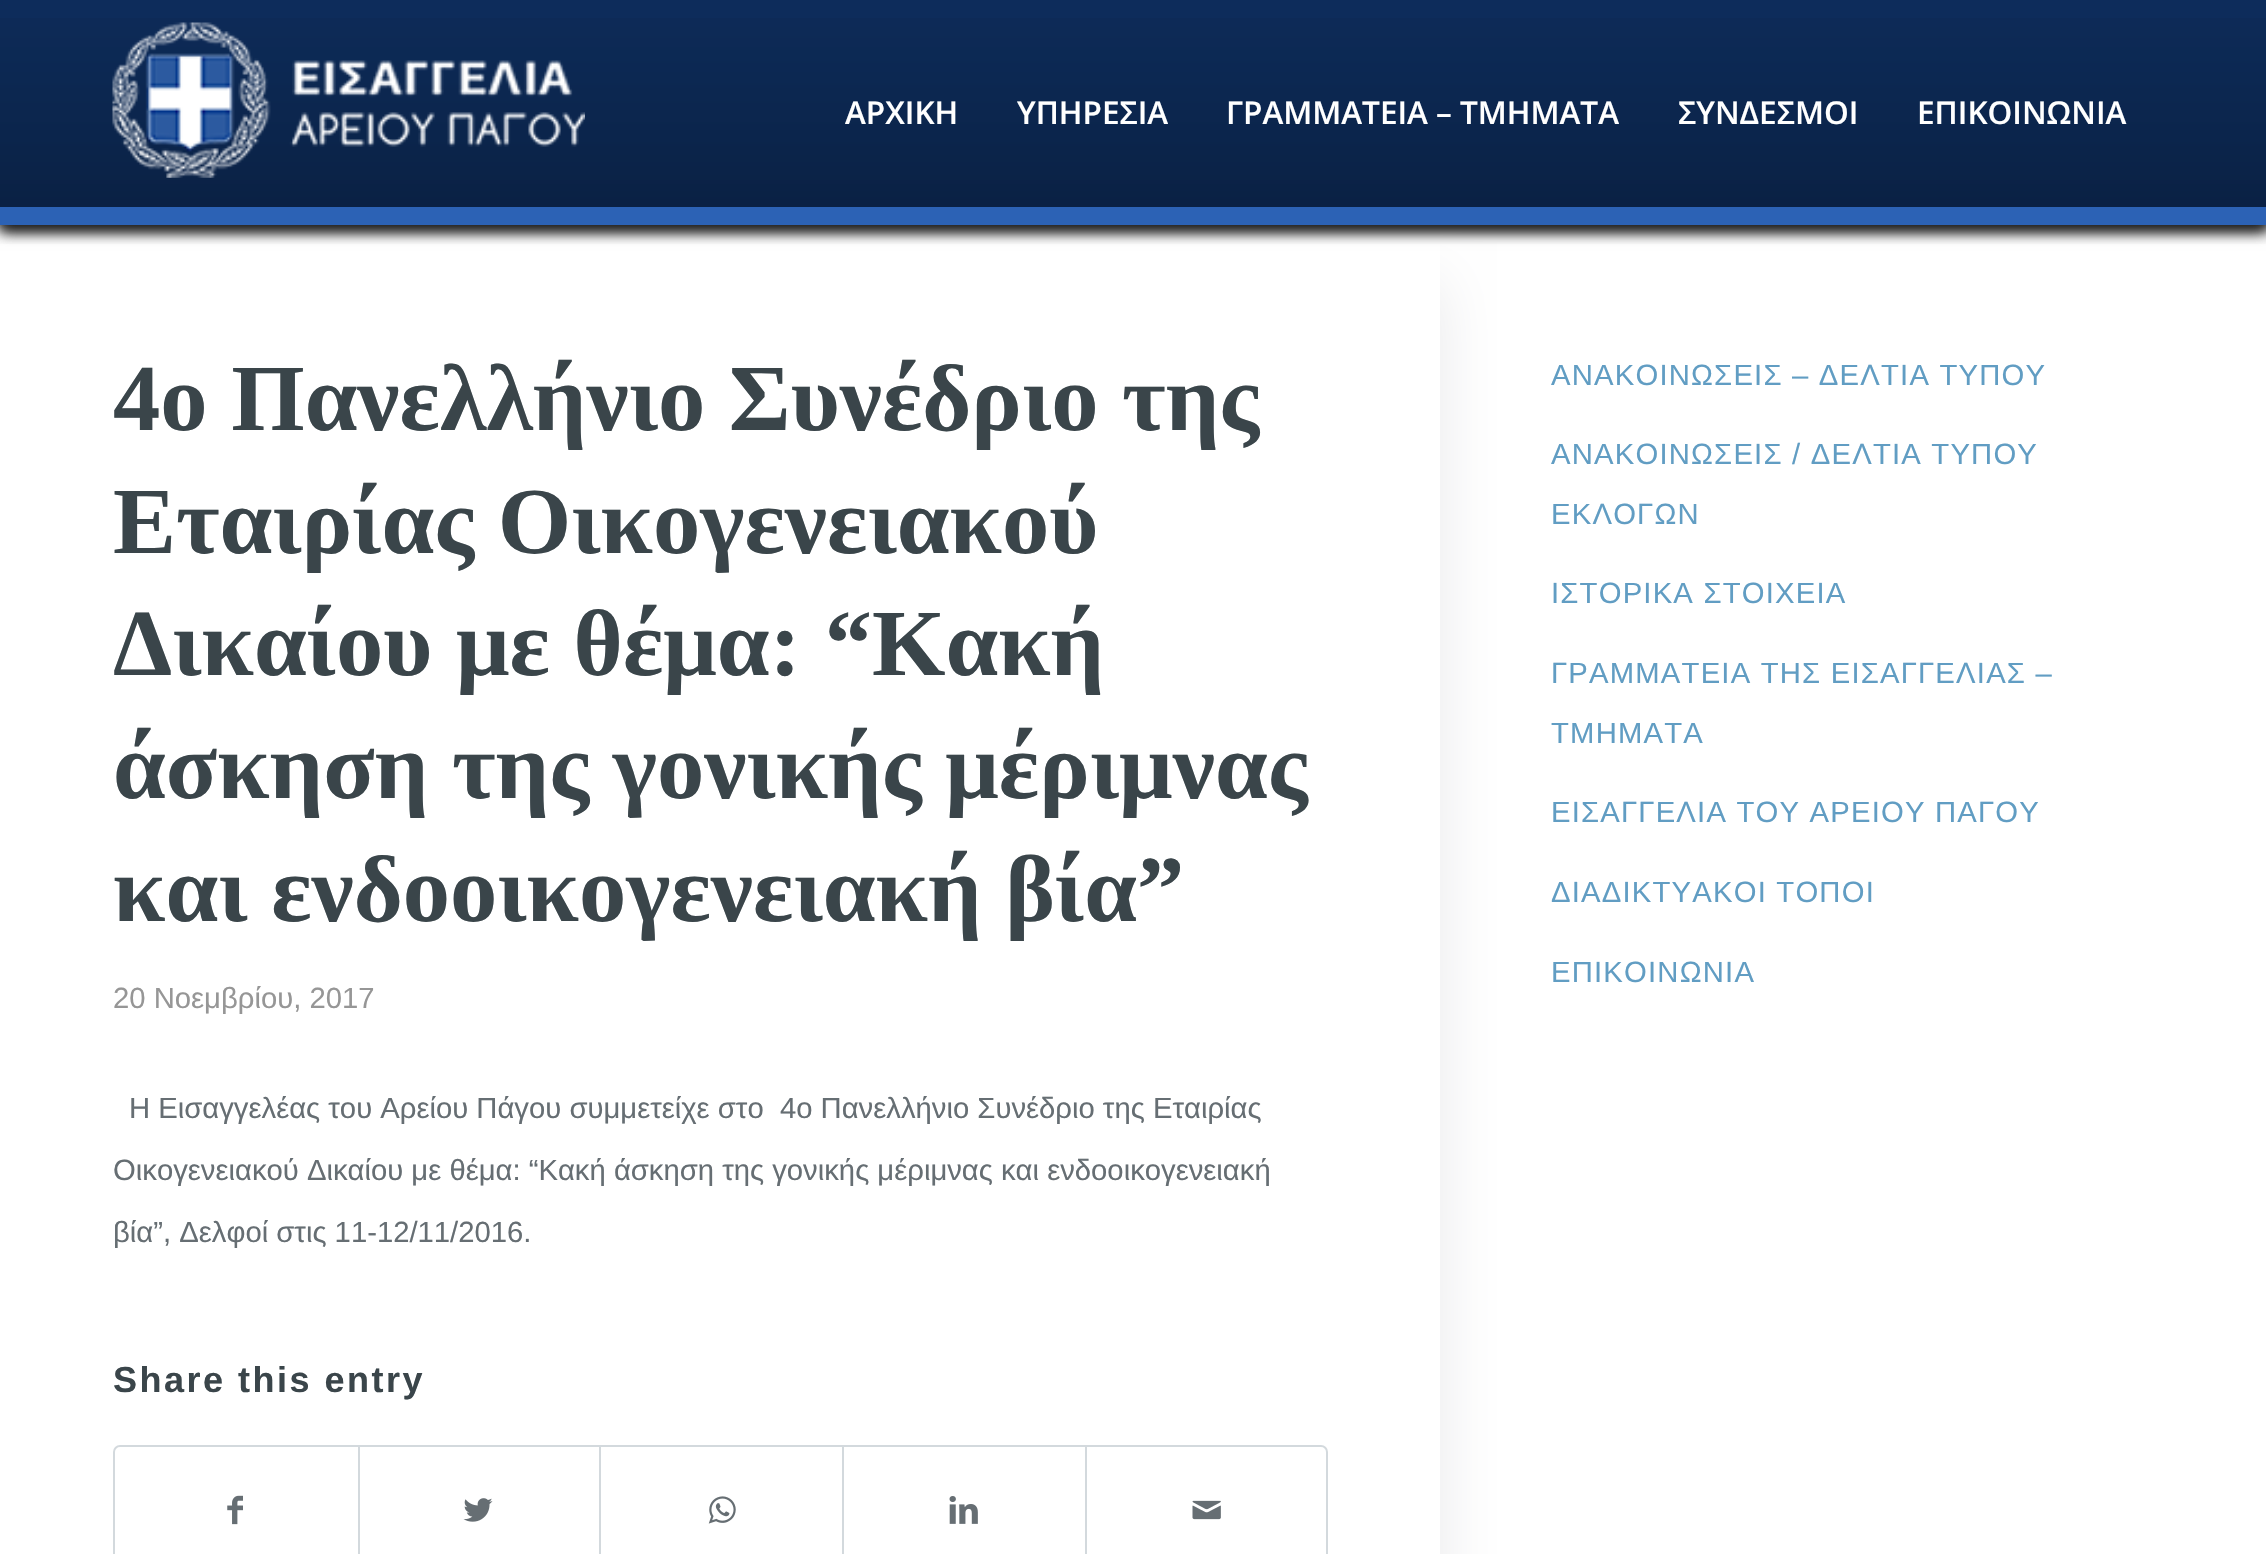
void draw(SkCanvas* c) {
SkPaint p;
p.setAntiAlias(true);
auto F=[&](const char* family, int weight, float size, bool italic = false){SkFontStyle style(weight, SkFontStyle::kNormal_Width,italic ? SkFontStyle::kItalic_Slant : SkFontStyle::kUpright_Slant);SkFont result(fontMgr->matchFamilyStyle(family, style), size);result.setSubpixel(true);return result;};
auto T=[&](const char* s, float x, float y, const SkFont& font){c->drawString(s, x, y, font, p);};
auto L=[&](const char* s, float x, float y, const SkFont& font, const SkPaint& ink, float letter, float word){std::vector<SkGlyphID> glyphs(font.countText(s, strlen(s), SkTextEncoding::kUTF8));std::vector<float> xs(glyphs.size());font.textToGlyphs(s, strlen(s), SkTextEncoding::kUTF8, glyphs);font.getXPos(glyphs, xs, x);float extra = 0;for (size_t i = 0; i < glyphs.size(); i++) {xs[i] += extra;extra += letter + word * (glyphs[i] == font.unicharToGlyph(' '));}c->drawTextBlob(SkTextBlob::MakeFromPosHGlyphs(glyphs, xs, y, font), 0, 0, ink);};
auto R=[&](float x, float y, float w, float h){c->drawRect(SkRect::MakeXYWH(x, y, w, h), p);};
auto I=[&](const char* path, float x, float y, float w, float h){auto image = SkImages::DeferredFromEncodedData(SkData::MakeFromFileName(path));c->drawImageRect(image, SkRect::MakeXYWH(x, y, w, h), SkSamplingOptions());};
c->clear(0xffffffff);
p.setColor(0xff1c1c1c);
p.setMaskFilter(SkMaskFilter::MakeBlur(kNormal_SkBlurStyle, 7));
c->drawRect(SkRect::MakeXYWH(0,5,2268,225),p);
p.setMaskFilter(nullptr);
c->save();
c->clipRect(SkRect::MakeXYWH(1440,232,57,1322));
p.setColor(0xffe9e9eb);
p.setMaskFilter(SkMaskFilter::MakeBlur(kNormal_SkBlurStyle, 28));
c->drawRect(SkRect::MakeXYWH(225,281,1215,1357),p);
p.setMaskFilter(nullptr);
c->restore();
p.setColor(0xff0d2c5b);
R(0,0,2266,207);
I("1.png",0,18,2266,189);
c->save();
c->clipRect(SkRect::MakeXYWH(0,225,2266,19));
p.setColor(0xff1c1c1c);
p.setMaskFilter(SkMaskFilter::MakeBlur(kNormal_SkBlurStyle, 7));
c->drawRect(SkRect::MakeXYWH(0,5,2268,225),p);
p.setMaskFilter(nullptr);
c->restore();
p.setColor(0xff2c62b5);
R(0,207,2266,18);
I("2.png",112,22,473,156);
auto f1 = F("Open Sans",600,31.5);
p.setColor(0xffffffff);
T("ΑΡΧΙΚΗ",845,124,f1);
T("ΥΠΗΡΕΣΙΑ",1017,124,f1);
T("ΓΡΑΜΜΑΤΕΙΑ – ΤΜΗΜΑΤΑ",1226,124,f1);
T("ΣΥΝΔΕΣΜΟΙ",1678,124,f1);
T("ΕΠΙΚΟΙΝΩΝΙΑ",1917,124,f1);
auto f2 = F("Liberation Serif",700,94.5);
p.setColor(0xff3a454a);
T("4ο Πανελλήνιο Συνέδριο της",113,430,f2);
T("Εταιρίας Οικογενειακού",113,553,f2);
T("Δικαίου με θέμα: “Κακή",113,675,f2);
T("άσκηση της γονικής μέριμνας",113,798,f2);
T("και ενδοοικογενειακή βία”",113,921,f2);
auto f3 = F("Liberation Sans",400,29.25);
p.setColor(0xff969696);
T("20 Νοεμβρίου, 2017",113,1008,f3);
p.setColor(0xff666e73);
T("Η Εισαγγελέας του Αρείου Πάγου συμμετείχε στο  4ο Πανελλήνιο Συνέδριο της Εταιρίας",129,1118,f3);
T("Οικογενειακού Δικαίου με θέμα: “Κακή άσκηση της γονικής μέριμνας και ενδοοικογενειακή",113,1180,f3);
T("βία”, Δελφοί στις 11-12/11/2016.",113,1242,f3);
auto f4 = F("Liberation Sans",700,36);
p.setColor(0xff3a454a);
L("Share this entry",113,1392,f4,p,2.5,0);
p.setStroke(true);
p.setStrokeWidth(2);
p.setColor(0xffd3d9dd);
c->drawRoundRect(SkRect::MakeXYWH(114,1446,1213,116),6,6,p);
I("3.png",227,1495,16,30);
p.setStroke(false);
R(358,1447,2,107);
I("4.png",463,1498,30,24);
R(599,1447,2,107);
I("5.png",708,1496,28,28);
R(842,1447,2,107);
I("6.png",949,1496,29,28);
R(1085,1447,2,107);
I("7.png",1192,1500,29,20);
p.setColor(0xff619dc3);
L("ΑΝΑΚΟΙΝΩΣΕΙΣ – ΔΕΛΤΙΑ ΤΥΠΟΥ",1551,385,f3,p,1.2,0);
L("ΑΝΑΚΟΙΝΩΣΕΙΣ / ΔΕΛΤΙΑ ΤΥΠΟΥ",1551,464,f3,p,1.2,0);
L("ΕΚΛΟΓΩΝ",1551,524,f3,p,1.2,0);
L("ΙΣΤΟΡΙΚΑ ΣΤΟΙΧΕΙΑ",1551,603,f3,p,1.2,0);
L("ΓΡΑΜΜΑΤΕΙΑ ΤΗΣ ΕΙΣΑΓΓΕΛΙΑΣ –",1551,683,f3,p,1.2,0);
L("ΤΜΗΜΑΤΑ",1551,743,f3,p,1.2,0);
L("ΕΙΣΑΓΓΕΛΙΑ ΤΟΥ ΑΡΕΙΟΥ ΠΑΓΟΥ",1551,822,f3,p,1.2,0);
L("ΔΙΑΔΙΚΤΥΑΚΟΙ ΤΟΠΟΙ",1551,902,f3,p,1.2,0);
L("ΕΠΙΚΟΙΝΩΝΙΑ",1551,982,f3,p,1.2,0);
}
